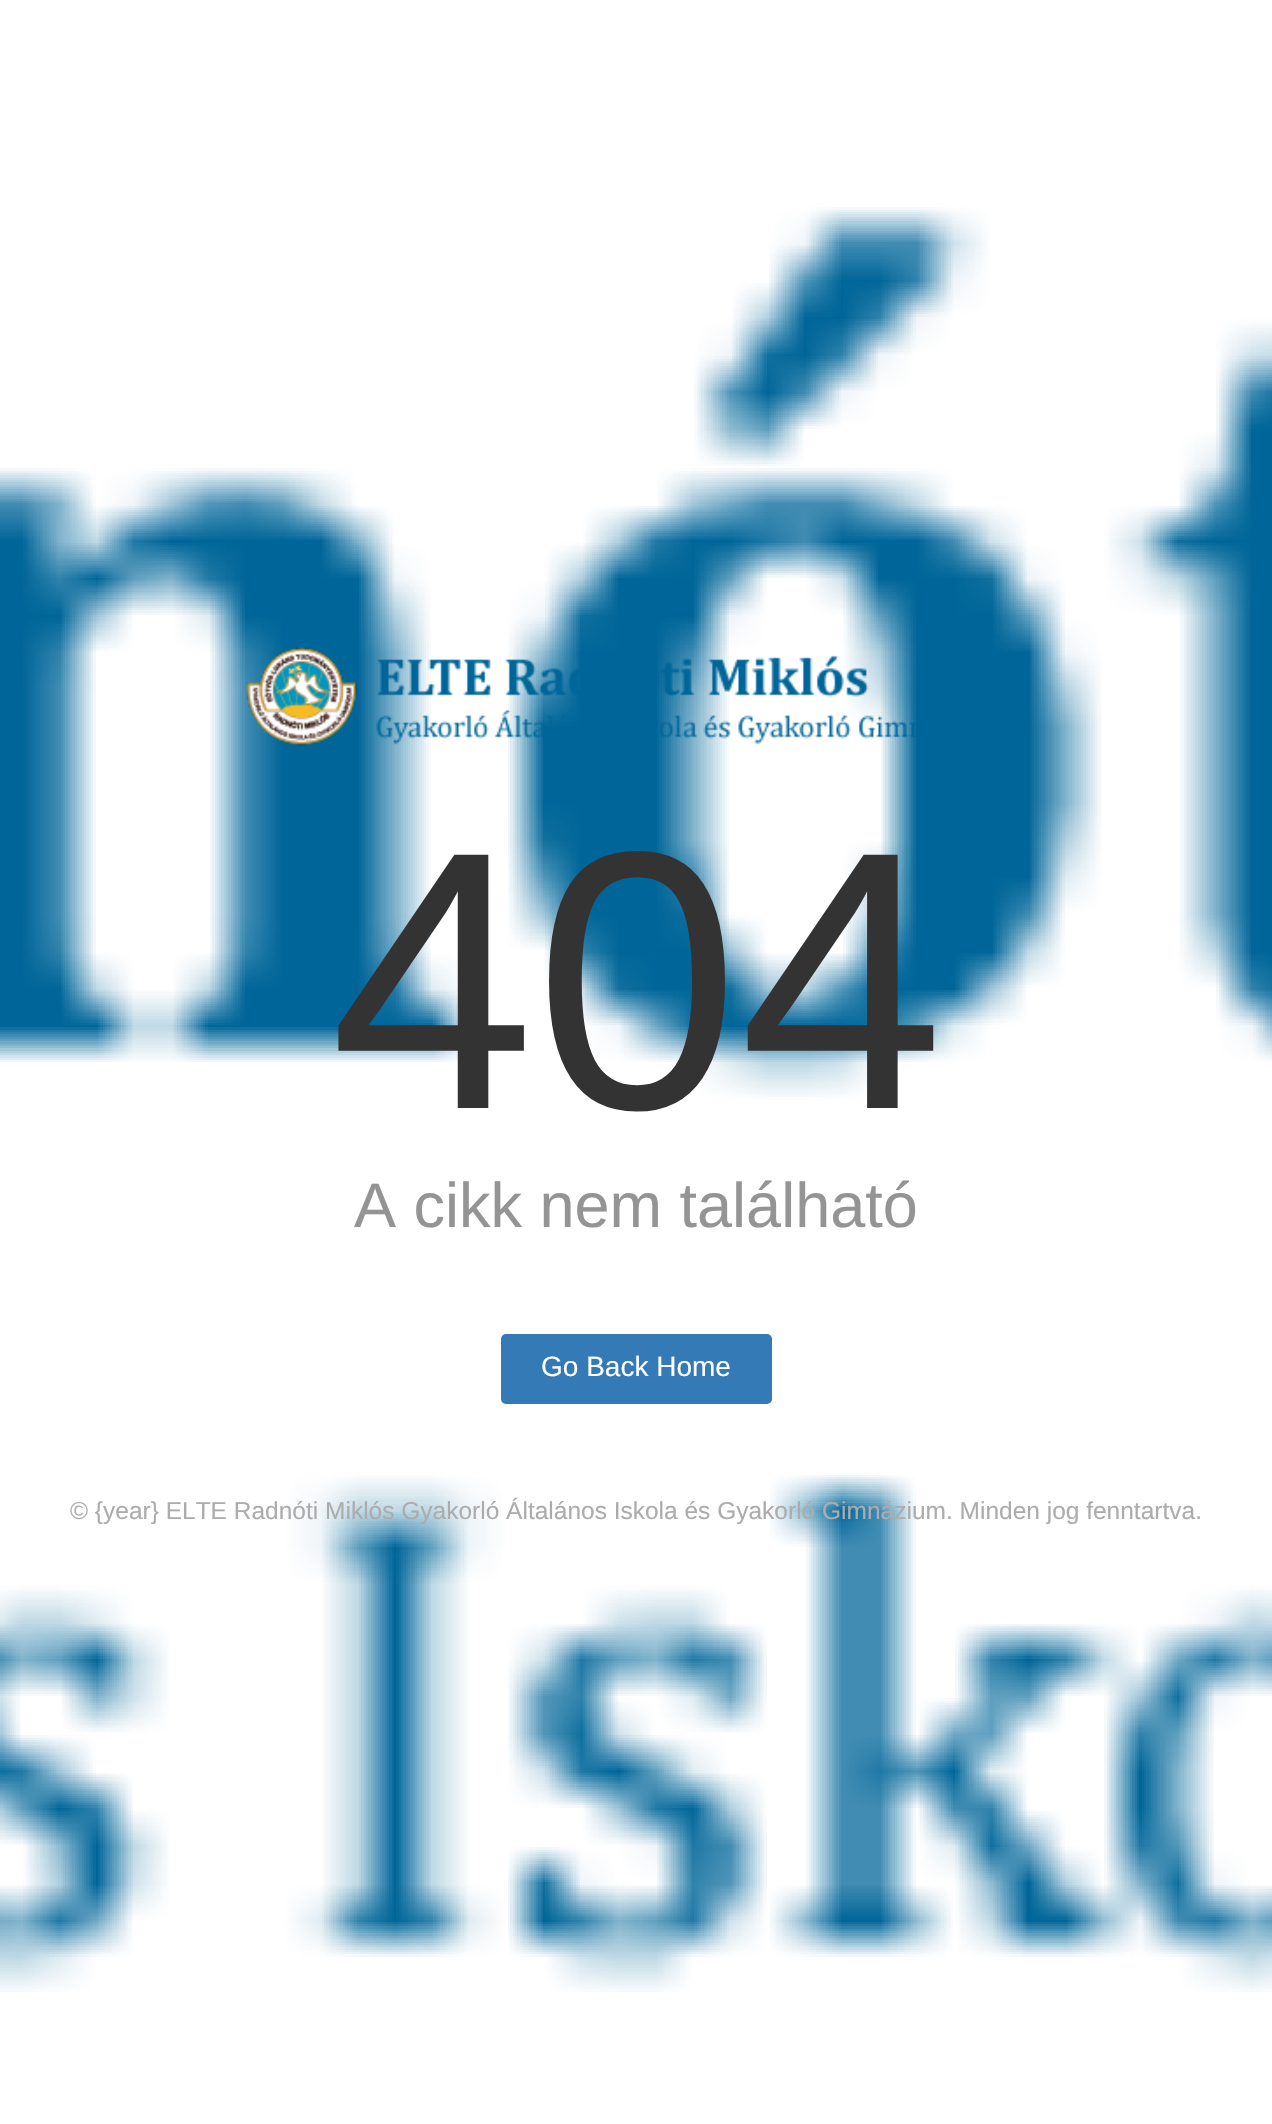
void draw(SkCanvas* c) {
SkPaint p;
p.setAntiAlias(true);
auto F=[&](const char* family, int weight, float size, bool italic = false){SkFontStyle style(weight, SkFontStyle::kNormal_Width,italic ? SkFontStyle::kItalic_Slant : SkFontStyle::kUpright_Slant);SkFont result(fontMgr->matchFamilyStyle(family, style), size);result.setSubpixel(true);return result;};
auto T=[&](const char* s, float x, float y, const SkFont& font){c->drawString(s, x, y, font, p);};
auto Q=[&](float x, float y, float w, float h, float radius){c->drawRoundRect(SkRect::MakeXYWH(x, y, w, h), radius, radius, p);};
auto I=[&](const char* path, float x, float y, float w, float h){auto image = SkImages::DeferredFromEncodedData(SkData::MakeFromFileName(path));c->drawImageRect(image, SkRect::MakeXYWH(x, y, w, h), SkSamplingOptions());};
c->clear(0xffffffff);
I("1.png",0,207,1272,1785);
I("2.png",246,647,670,99);
auto f1 = F("Liberation Sans",400,368);
p.setColor(0xff333333);
T("404",330,1108,f1);
auto f2 = F("Liberation Sans",400,63);
p.setColor(0xff949494);
T("A cikk nem található",354,1227,f2);
p.setColor(0xff337ab7);
Q(501,1334,271,70,5);
auto f3 = F("Liberation Sans",400,28);
p.setColor(0xffffffff);
T("Go Back Home",541,1376,f3);
auto f4 = F("Liberation Sans",400,24.5);
p.setColor(0xffacacac);
T("© {year} ELTE Radnóti Miklós Gyakorló Általános Iskola és Gyakorló Gimnázium. Minden jog fenntartva.",70,1519,f4);
}
